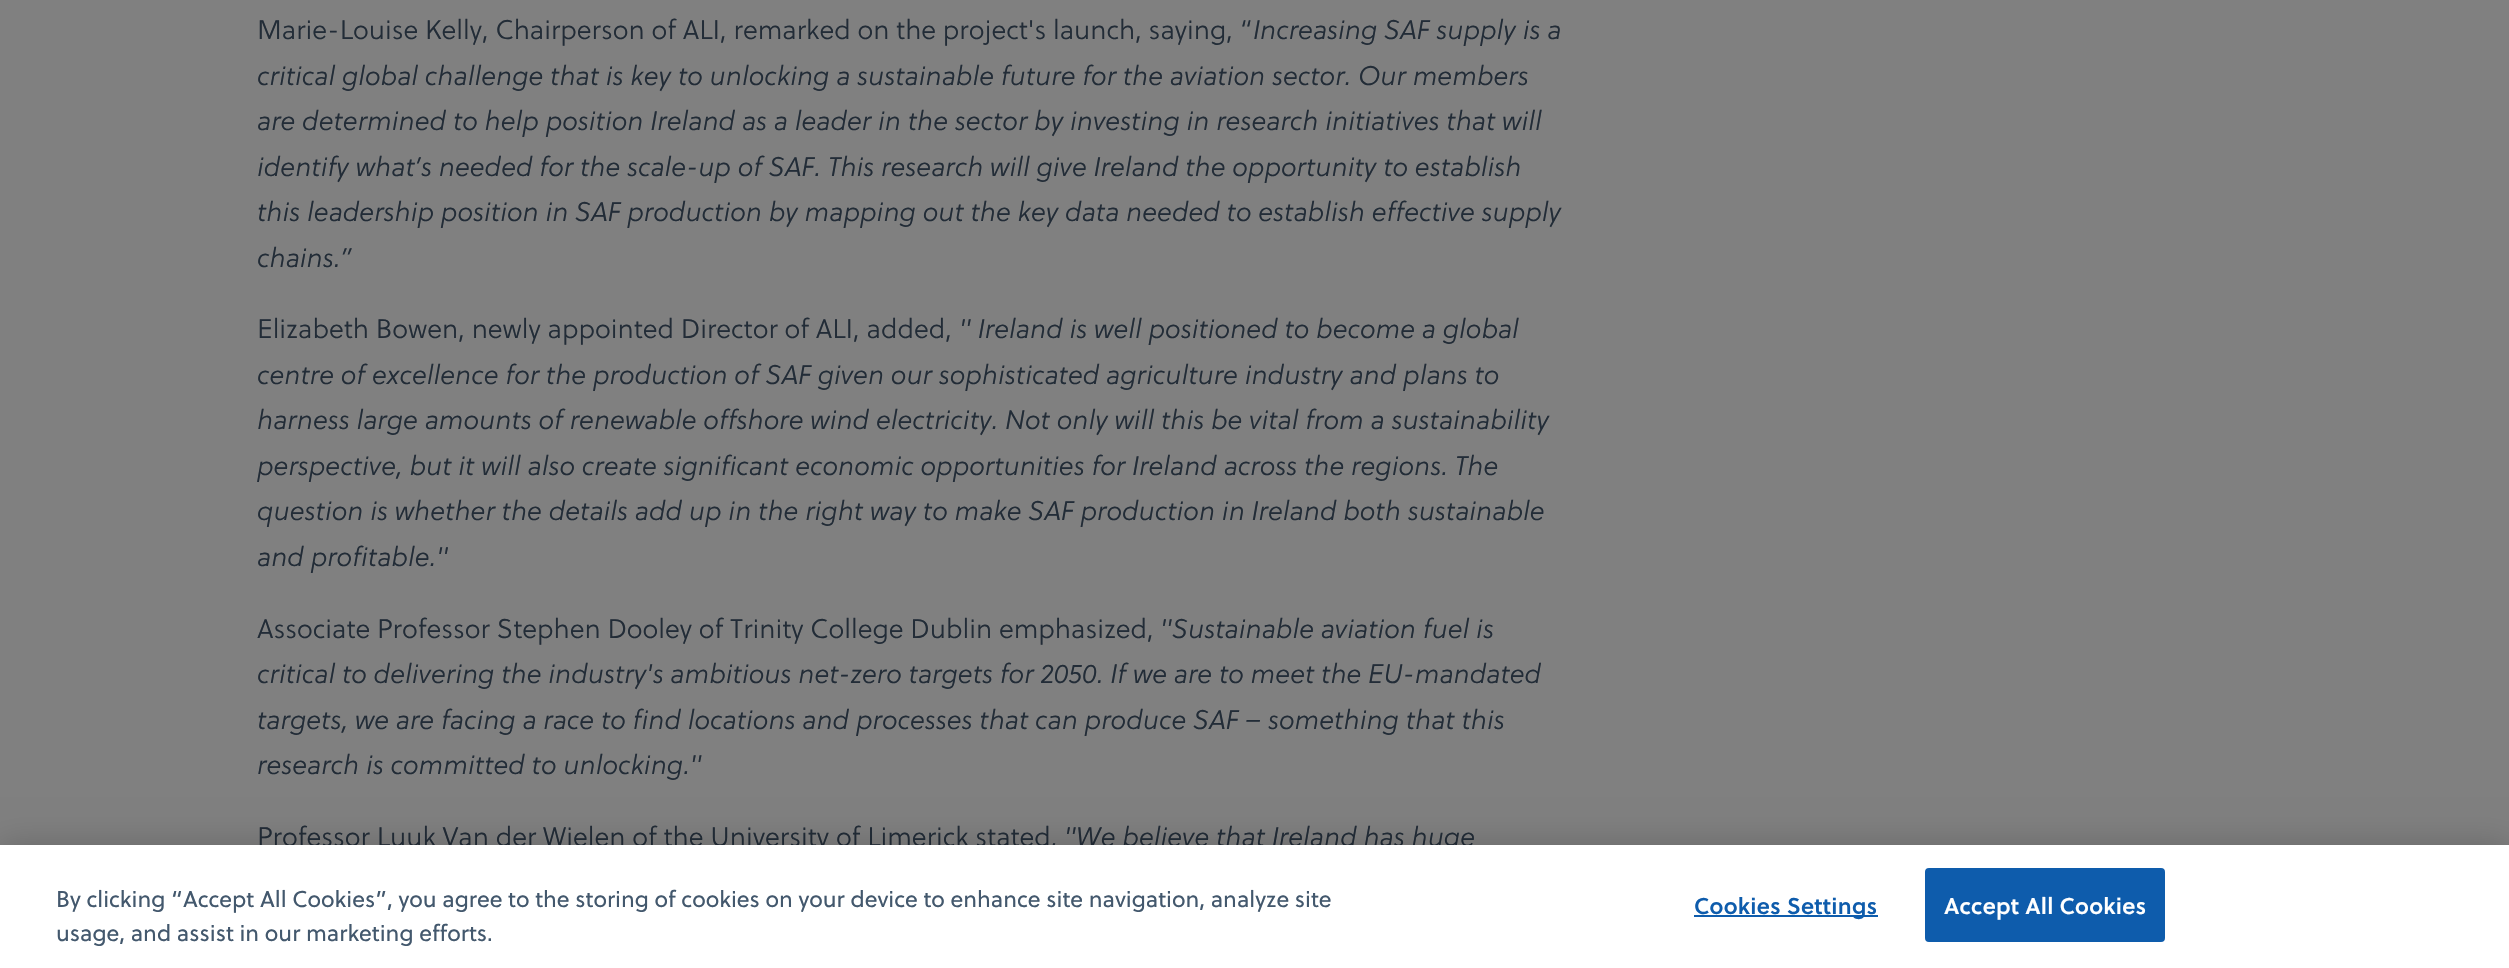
void draw(SkCanvas* c) {
SkPaint p;
p.setAntiAlias(true);
auto F=[&](const char* family, int weight, float size, bool italic = false){SkFontStyle style(weight, SkFontStyle::kNormal_Width,italic ? SkFontStyle::kItalic_Slant : SkFontStyle::kUpright_Slant);SkFont result(fontMgr->matchFamilyStyle(family, style), size);result.setSubpixel(true);return result;};
auto T=[&](const char* s, float x, float y, const SkFont& font){c->drawString(s, x, y, font, p);};
auto L=[&](const char* s, float x, float y, const SkFont& font, const SkPaint& ink, float letter, float word){std::vector<SkGlyphID> glyphs(font.countText(s, strlen(s), SkTextEncoding::kUTF8));std::vector<float> xs(glyphs.size());font.textToGlyphs(s, strlen(s), SkTextEncoding::kUTF8, glyphs);font.getXPos(glyphs, xs, x);float extra = 0;for (size_t i = 0; i < glyphs.size(); i++) {xs[i] += extra;extra += letter + word * (glyphs[i] == font.unicharToGlyph(' '));}c->drawTextBlob(SkTextBlob::MakeFromPosHGlyphs(glyphs, xs, y, font), 0, 0, ink);};
auto R=[&](float x, float y, float w, float h){c->drawRect(SkRect::MakeXYWH(x, y, w, h), p);};
c->clear(0xff808080);
auto f1 = F("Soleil",300,26.95);
p.setColor(0xff222c37);
T("Marie-Louise Kelly, Chairperson of ALI, remarked on the project's launch, saying, “",257,39,f1);
auto f2 = F("Soleil",300,26.95,true);
T("Increasing SAF supply is a",1253,39,f2);
T("critical global challenge that is key to unlocking a sustainable future for the aviation sector. Our members",257,85,f2);
T("are determined to help position Ireland as a leader in the sector by investing in research initiatives that will",257,130,f2);
T("identify what’s needed for the scale-up of SAF. This research will give Ireland the opportunity to establish",257,176,f2);
T("this leadership position in SAF production by mapping out the key data needed to establish effective supply",257,221,f2);
T("chains.”",257,267,f2);
T("Elizabeth Bowen, newly appointed Director of ALI, added,",257,338,f1);
T("\" Ireland is well positioned to become a global",959,338,f2);
T("centre of excellence for the production of SAF given our sophisticated agriculture industry and plans to",257,384,f2);
T("harness large amounts of renewable offshore wind electricity. Not only will this be vital from a sustainability",257,429,f2);
T("perspective, but it will also create significant economic opportunities for Ireland across the regions. The",257,475,f2);
T("question is whether the details add up in the right way to make SAF production in Ireland both sustainable",257,520,f2);
T("and profitable.\"",257,566,f2);
T("Associate Professor Stephen Dooley of Trinity College Dublin emphasized,",257,638,f1);
T("\"Sustainable aviation fuel is",1160,638,f2);
T("critical to delivering the industry's ambitious net-zero targets for 2050. If we are to meet the EU-mandated",257,683,f2);
T("targets, we are facing a race to find locations and processes that can produce SAF – something that this",257,729,f2);
T("research is committed to unlocking.\"",257,774,f2);
T("Professor Luuk Van der Wielen of the University of Limerick stated,",257,846,f1);
T("\"We believe that Ireland has huge",1064,846,f2);
p.setColor(0x33000000);
p.setMaskFilter(SkMaskFilter::MakeBlur(kNormal_SkBlurStyle, 16));
c->drawRect(SkRect::MakeXYWH(0,845,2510,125),p);
p.setMaskFilter(nullptr);
p.setColor(0xffffffff);
R(0,845,2509,123);
auto f3 = F("Soleil",400,22.75);
p.setColor(0xff43586d);
T("By clicking “Accept All Cookies”, you agree to the storing of cookies on your device to enhance site navigation, analyze site",56,907,f3);
T("usage, and assist in our marketing efforts.",56,941,f3);
p.setColor(0xff0e5cac);
R(1694,915,184,2);
auto f4 = F("Soleil",600,22.75);
L("Cookies Settings",1694,914,f4,p,.25,0);
c->drawRoundRect(SkRect::MakeXYWH(1926,869,238,72),3,3,p);
p.setStroke(true);
p.setStrokeWidth(2);
c->drawRoundRect(SkRect::MakeXYWH(1926,869,238,72),3,3,p);
p.setStroke(false);
p.setColor(0xffffffff);
L("Accept All Cookies",1944,914,f4,p,.25,0);
}
